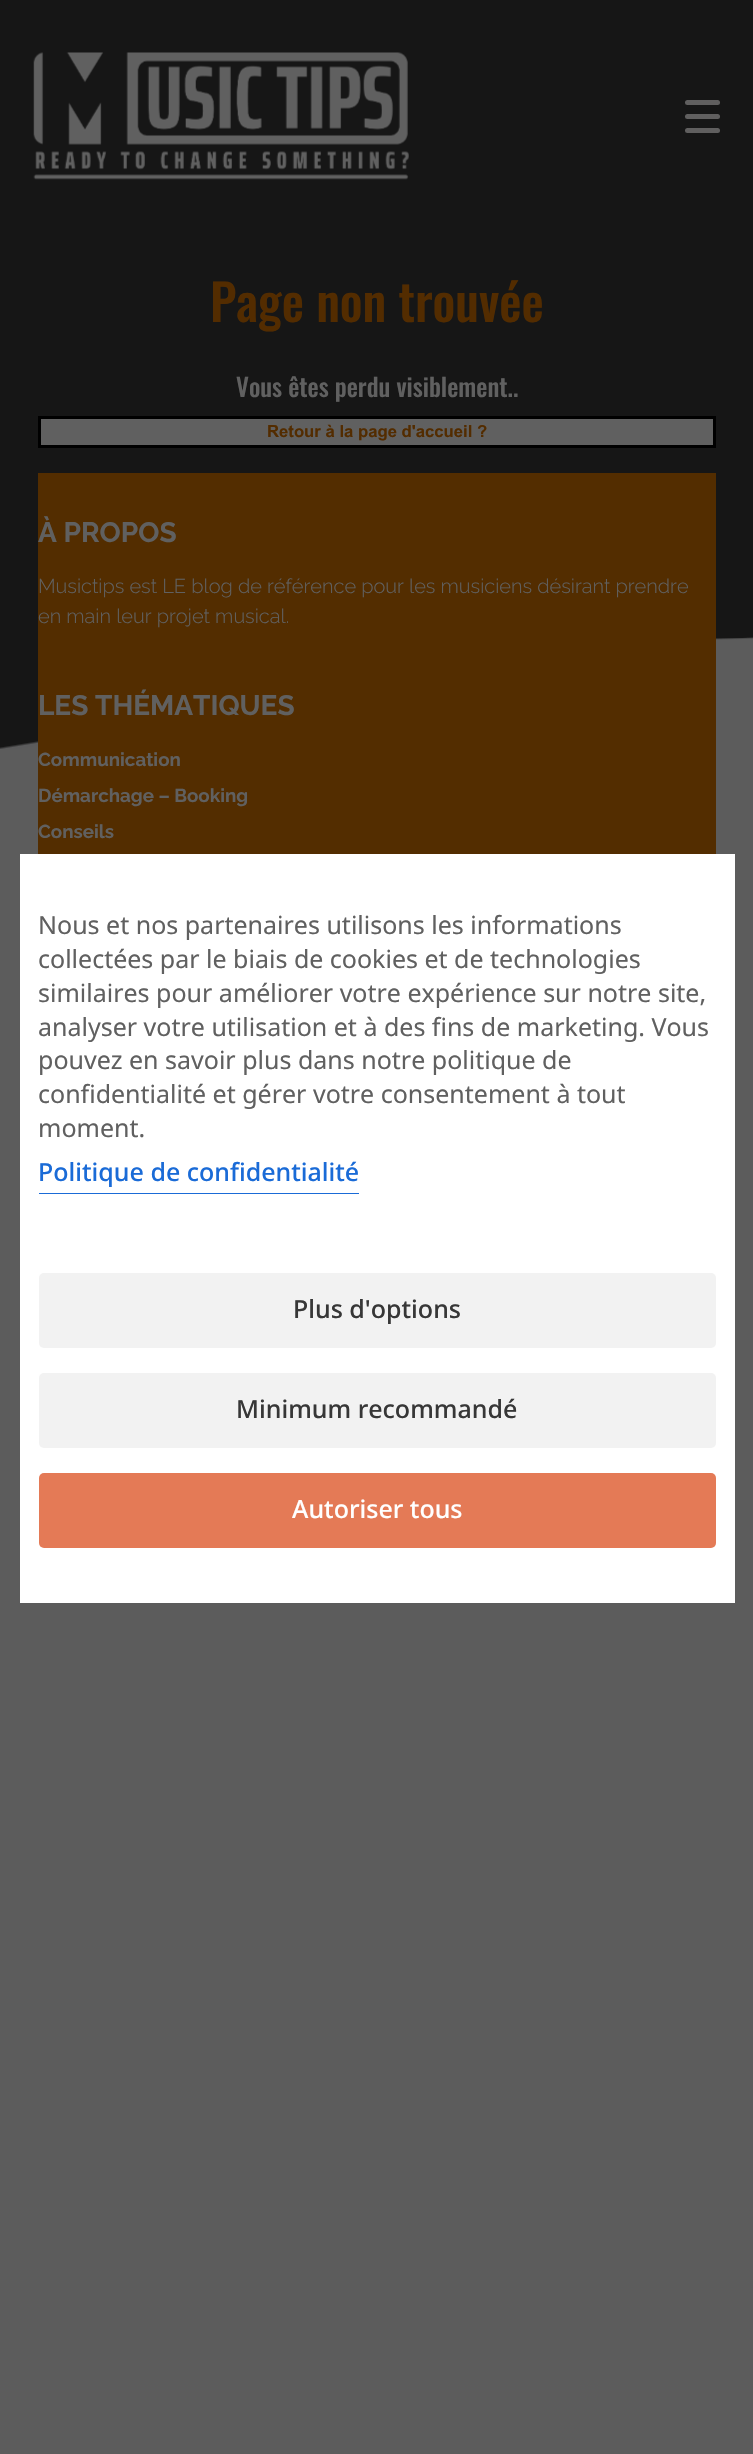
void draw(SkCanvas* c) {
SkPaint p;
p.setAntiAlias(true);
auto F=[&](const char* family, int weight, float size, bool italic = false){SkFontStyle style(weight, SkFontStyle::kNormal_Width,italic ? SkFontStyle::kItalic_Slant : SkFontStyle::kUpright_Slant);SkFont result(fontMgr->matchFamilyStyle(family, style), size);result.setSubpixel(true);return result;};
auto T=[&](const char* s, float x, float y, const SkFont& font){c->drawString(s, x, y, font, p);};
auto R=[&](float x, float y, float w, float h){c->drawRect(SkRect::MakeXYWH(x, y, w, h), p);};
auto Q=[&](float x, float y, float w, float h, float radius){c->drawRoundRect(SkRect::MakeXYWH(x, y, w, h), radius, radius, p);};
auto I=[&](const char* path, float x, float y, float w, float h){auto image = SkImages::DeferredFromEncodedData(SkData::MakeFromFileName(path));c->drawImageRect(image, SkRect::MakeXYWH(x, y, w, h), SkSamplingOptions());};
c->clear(0xff5c5c5c);
p.setColor(0xff161616);
R(0,0,753,625);
{
const SkColor colors[] = {0xff5c5c5c,0xff5b5b5c,0xff161616};
const float stops[] = {.48,.5,.51};
const SkPoint ends[] = {{397,809}, {357,566}};
p.setShader(SkGradientShader::MakeLinear(ends, colors, stops, 3, SkTileMode::kClamp));
p.setAlpha(255);
}
R(0,625,753,124);
I("1.png",33,52,376,128);
p.setShader(nullptr);
p.setColor(0xff605f5f);
Q(685,100,35,5,2.5);
Q(685,114,35,5,2.5);
Q(685,128,35,5,2.5);
auto f1 = F("Oswald",500,50);
p.setColor(0xff532c00);
T("Page non trouvée",210,322,f1);
auto f2 = F("Oswald",500,25);
p.setColor(0xff606060);
T("Vous êtes perdu visiblement..",236,397,f2);
c->drawRect(SkRect::MakeXYWH(39.5,417.5,675,29),p);
p.setStroke(true);
p.setStrokeWidth(3);
p.setColor(0xff000000);
c->drawRect(SkRect::MakeXYWH(39.5,417.5,675,29),p);
auto f3 = F("Arial",700,16.7);
p.setStroke(false);
p.setColor(0xff532c00);
T("Retour à la page d'accueil ?",267,437,f3);
p.setColor(0xff532d00);
R(38,473,678,381);
auto f4 = F("Raleway",700,28);
p.setColor(0xff606060);
T("À PROPOS",38,542,f4);
auto f5 = F("Raleway",300,20);
T("Musictips est LE blog de référence pour les musiciens désirant prendre",38,593,f5);
T("en main leur projet musical.",38,623,f5);
T("LES THÉMATIQUES",38,715,f4);
auto f6 = F("Raleway",700,18.75);
T("Communication",38,766,f6);
T("Démarchage – Booking",38,802,f6);
T("Conseils",38,838,f6);
p.setColor(0xffffffff);
R(20,854,715,749);
auto f7 = F("Noto Sans",400,25);
p.setColor(0xff606060);
T("Nous et nos partenaires utilisons les informations",38,934,f7);
T("collectées par le biais de cookies et de technologies",38,968,f7);
T("similaires pour améliorer votre expérience sur notre site,",38,1002,f7);
T("analyser votre utilisation et à des fins de marketing. Vous",38,1036,f7);
T("pouvez en savoir plus dans notre politique de",38,1069,f7);
T("confidentialité et gérer votre consentement à tout",38,1103,f7);
T("moment.",38,1137,f7);
auto f8 = F("Noto Sans",500,25);
p.setColor(0xff1a6bd7);
T("Politique de confidentialité",38,1181,f8);
R(39,1193,320,1);
p.setColor(0xfff2f2f2);
Q(39,1273,677,75,5);
p.setColor(0xff373737);
T("Plus d'options",293,1318,f8);
p.setColor(0xfff2f2f2);
Q(39,1373,677,75,5);
p.setColor(0xff373737);
T("Minimum recommandé",236,1418,f8);
p.setColor(0xffe47a56);
Q(39,1473,677,75,5);
p.setColor(0xffffffff);
T("Autoriser tous",292,1518,f8);
I("2.png",716,625,37,15);
}
